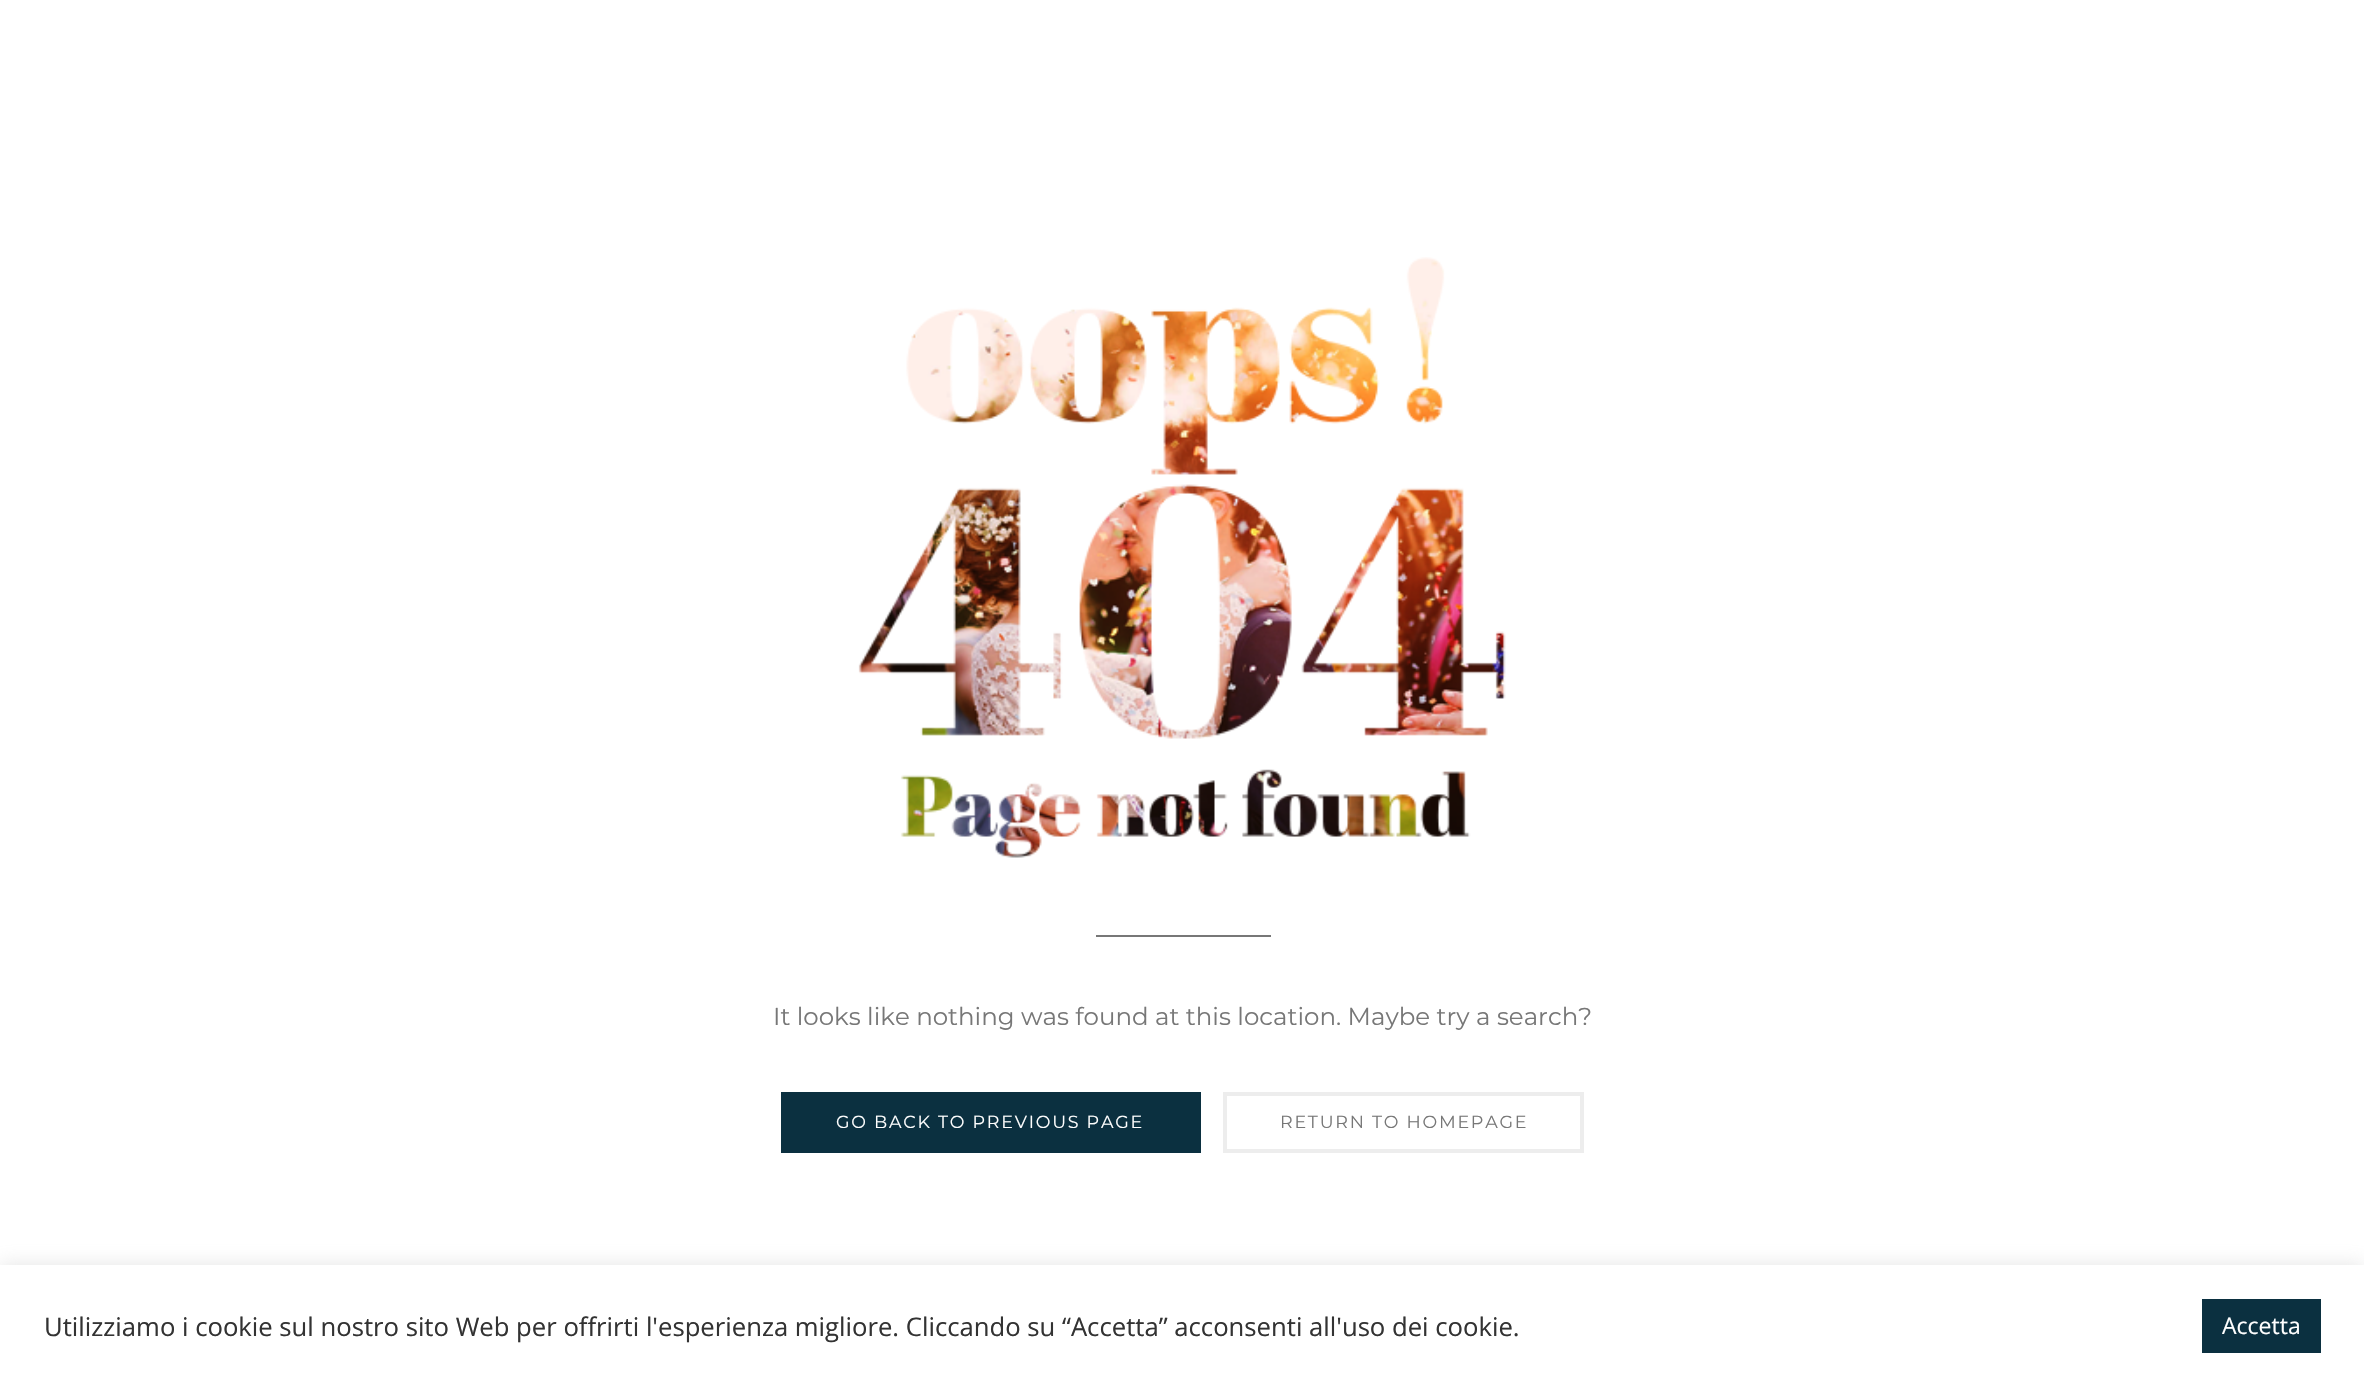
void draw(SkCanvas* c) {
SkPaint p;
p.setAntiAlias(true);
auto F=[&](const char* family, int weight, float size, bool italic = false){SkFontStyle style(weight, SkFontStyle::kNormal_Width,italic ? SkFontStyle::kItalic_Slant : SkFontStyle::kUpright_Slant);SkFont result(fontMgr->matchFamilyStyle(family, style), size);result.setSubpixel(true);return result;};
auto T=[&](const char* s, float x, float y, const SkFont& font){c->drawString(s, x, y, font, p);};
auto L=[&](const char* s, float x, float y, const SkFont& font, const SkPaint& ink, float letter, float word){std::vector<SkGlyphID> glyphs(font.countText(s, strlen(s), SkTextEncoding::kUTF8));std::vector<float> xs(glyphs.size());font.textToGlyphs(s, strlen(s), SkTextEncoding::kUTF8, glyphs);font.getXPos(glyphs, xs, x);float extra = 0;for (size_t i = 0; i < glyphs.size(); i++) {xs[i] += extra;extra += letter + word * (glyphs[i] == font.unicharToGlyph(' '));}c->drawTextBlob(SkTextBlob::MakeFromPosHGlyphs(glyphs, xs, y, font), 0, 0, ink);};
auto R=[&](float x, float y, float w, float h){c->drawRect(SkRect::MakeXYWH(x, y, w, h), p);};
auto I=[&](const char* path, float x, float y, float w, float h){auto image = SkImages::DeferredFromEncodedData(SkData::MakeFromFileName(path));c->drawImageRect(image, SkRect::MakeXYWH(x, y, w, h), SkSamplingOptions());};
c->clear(0xffffffff);
I("1.png",858,257,648,601);
p.setColor(0xff777777);
R(1096,935,175,2);
auto f1 = F("Montserrat",400,24.5);
T("It looks like nothing was found at this location. Maybe try a search?",773,1025,f1);
p.setColor(0xff0b3040);
R(781,1092,420,61);
auto f2 = F("Montserrat",400,17.5);
p.setColor(0xffffffff);
L("GO BACK TO PREVIOUS PAGE",836,1128,f2,p,1.75,0);
p.setStroke(true);
p.setStrokeWidth(4);
p.setColor(0xffededed);
c->drawRect(SkRect::MakeXYWH(1225,1094,357,57),p);
p.setStroke(false);
p.setColor(0xff777777);
L("RETURN TO HOMEPAGE",1280,1128,f2,p,1.75,0);
p.setColor(0x4dacabab);
p.setMaskFilter(SkMaskFilter::MakeBlur(kNormal_SkBlurStyle, 9));
c->drawRect(SkRect::MakeXYWH(0,1264,2364,120),p);
p.setMaskFilter(nullptr);
p.setColor(0xffffffff);
R(0,1265,2364,120);
auto f3 = F("Open Sans",400,25.67);
p.setColor(0xff333333);
T("Utilizziamo i cookie sul nostro sito Web per offrirti l'esperienza migliore. Cliccando su “Accetta” acconsenti all'uso dei cookie.",44,1336,f3);
p.setColor(0xff0b3040);
R(2202,1299,119,54);
auto f4 = F("Open Sans",400,23);
p.setColor(0xffffffff);
T("Accetta",2222,1334,f4);
}
